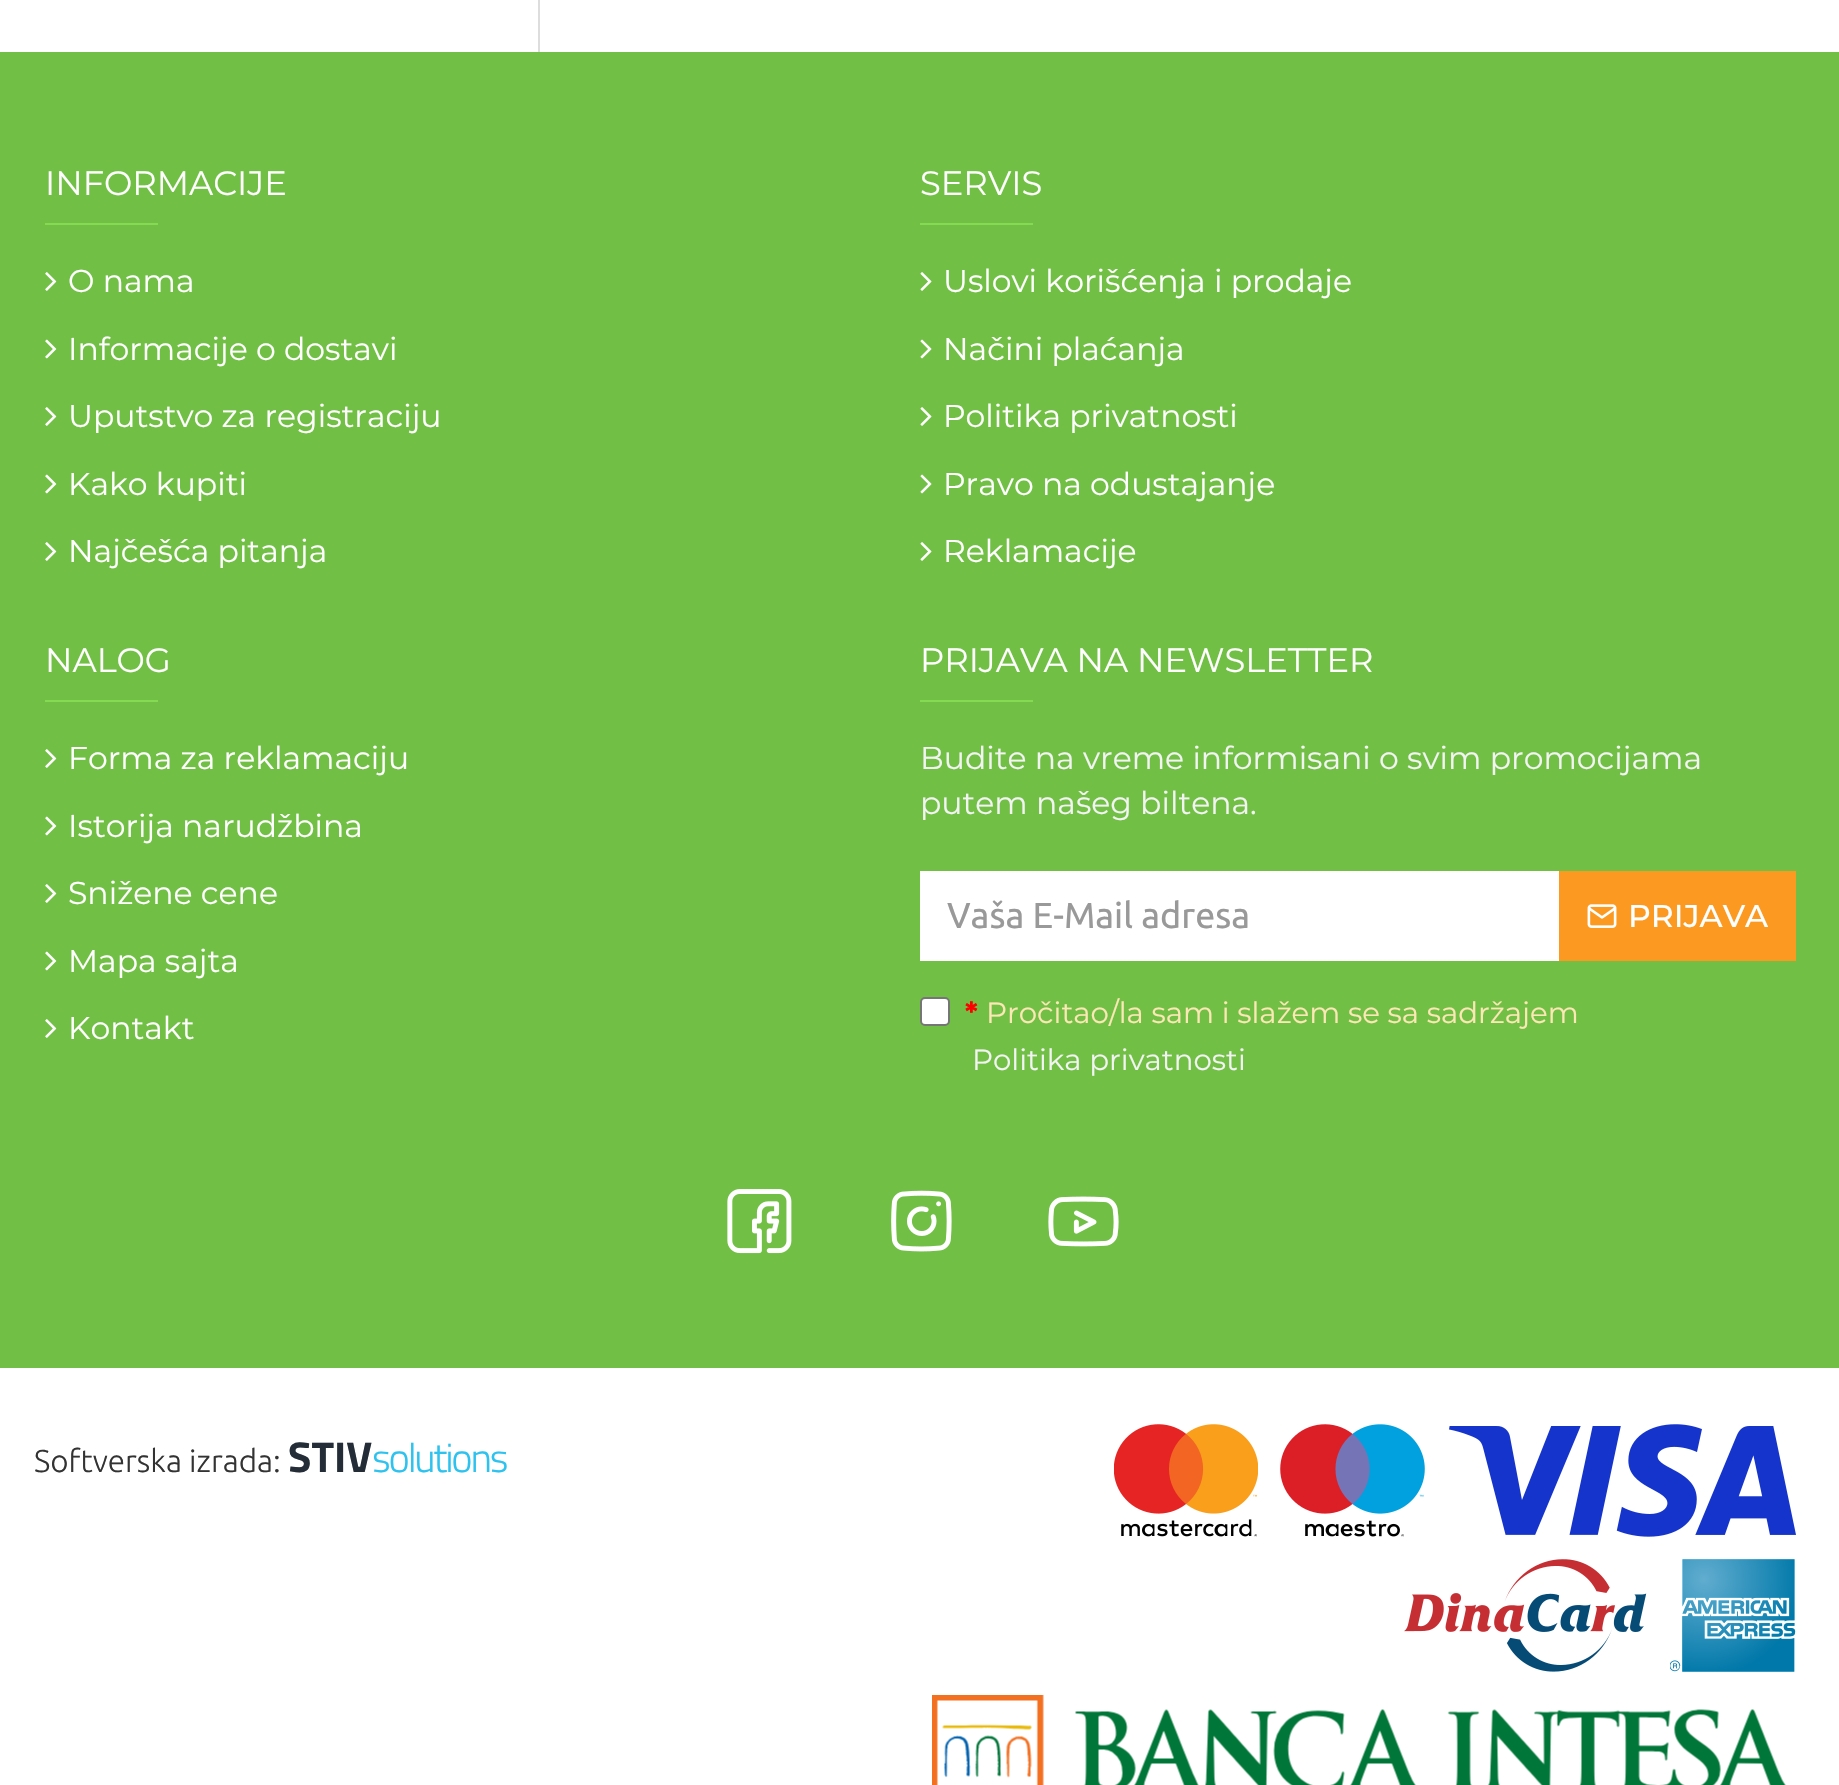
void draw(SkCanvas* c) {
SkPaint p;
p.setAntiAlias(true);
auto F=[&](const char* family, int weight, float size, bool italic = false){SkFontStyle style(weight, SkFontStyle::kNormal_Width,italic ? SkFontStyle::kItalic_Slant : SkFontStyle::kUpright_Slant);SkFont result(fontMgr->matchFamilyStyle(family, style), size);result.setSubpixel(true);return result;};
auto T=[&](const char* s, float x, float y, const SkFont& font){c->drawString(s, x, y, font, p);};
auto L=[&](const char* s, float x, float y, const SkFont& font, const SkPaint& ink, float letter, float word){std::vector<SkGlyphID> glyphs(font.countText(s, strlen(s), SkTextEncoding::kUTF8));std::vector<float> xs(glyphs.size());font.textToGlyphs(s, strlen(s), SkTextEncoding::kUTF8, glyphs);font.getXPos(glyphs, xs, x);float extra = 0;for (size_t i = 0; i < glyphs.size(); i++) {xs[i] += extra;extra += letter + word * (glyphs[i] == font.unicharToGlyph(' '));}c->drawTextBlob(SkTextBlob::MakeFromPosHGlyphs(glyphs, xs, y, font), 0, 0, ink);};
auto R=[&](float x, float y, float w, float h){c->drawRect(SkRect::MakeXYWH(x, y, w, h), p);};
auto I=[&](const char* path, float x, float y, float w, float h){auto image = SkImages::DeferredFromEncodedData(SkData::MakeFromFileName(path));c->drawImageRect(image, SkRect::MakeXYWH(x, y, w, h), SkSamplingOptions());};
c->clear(0xffffffff);
p.setColor(0xffdddddd);
R(538,0,2,52);
p.setColor(0xff71bf44);
R(0,52,1839,1316);
auto f1 = F("Montserrat",400,33.75);
p.setColor(0xffffffff);
T("INFORMACIJE",45,195,f1);
p.setColor(0xff84da53);
R(45,223,113,2);
I("1.png",45,272,12,19);
auto f2 = F("Montserrat",400,31.5);
p.setColor(0xffffffff);
T("O nama",68,292,f2);
I("2.png",45,339,12,20);
T("Informacije o dostavi",68,360,f2);
I("1.png",45,407,12,19);
T("Uputstvo za registraciju",68,427,f2);
I("2.png",45,474,12,20);
T("Kako kupiti",68,495,f2);
I("1.png",45,542,12,19);
T("Najčešća pitanja",68,562,f2);
T("SERVIS",920,195,f1);
p.setColor(0xff84da53);
R(920,223,113,2);
I("3.png",920,272,12,19);
p.setColor(0xffffffff);
T("Uslovi korišćenja i prodaje",943,292,f2);
I("4.png",920,339,12,20);
T("Načini plaćanja",943,360,f2);
I("3.png",920,407,12,19);
T("Politika privatnosti",943,427,f2);
I("4.png",920,474,12,20);
T("Pravo na odustajanje",943,495,f2);
I("3.png",920,542,12,19);
T("Reklamacije",943,562,f2);
T("NALOG",45,672,f1);
p.setColor(0xff84da53);
R(45,700,113,2);
I("1.png",45,749,12,19);
p.setColor(0xffffffff);
T("Forma za reklamaciju",68,769,f2);
I("2.png",45,816,12,20);
T("Istorija narudžbina",68,837,f2);
I("1.png",45,884,12,19);
T("Snižene cene",68,904,f2);
I("2.png",45,951,12,20);
T("Mapa sajta",68,972,f2);
I("1.png",45,1019,12,19);
T("Kontakt",68,1039,f2);
T("PRIJAVA NA NEWSLETTER",920,672,f1);
p.setColor(0xff84da53);
R(920,700,113,2);
p.setColor(0xfff3f3f3);
T("Budite na vreme informisani o svim promocijama",920,769,f2);
T("putem našeg biltena.",920,814,f2);
p.setColor(0xffffffff);
R(920,871,639,90);
auto f3 = F("Ubuntu",400,36);
p.setColor(0xff999999);
T("Vaša E-Mail adresa",947,928,f3);
p.setColor(0xfffc9921);
R(1559,871,237,90);
I("5.png",1587,904,30,24);
auto f4 = F("Montserrat",500,31.5);
p.setColor(0xffffffff);
T("PRIJAVA",1628,927,f4);
c->drawRoundRect(SkRect::MakeXYWH(921,998,28,27),4,4,p);
p.setStroke(true);
p.setStrokeWidth(2);
p.setColor(0xff767676);
c->drawRoundRect(SkRect::MakeXYWH(921,998,28,27),4,4,p);
auto f5 = F("Montserrat",700,29.25);
p.setStroke(false);
p.setColor(0xffff0000);
T("*",965,1023,f5);
auto f6 = F("Montserrat",400,29.25);
p.setColor(0xfffce8b6);
T("Pročitao/la sam i slažem se sa sadržajem",986,1023,f6);
p.setColor(0xfff3f3f3);
T("Politika privatnosti",972,1070,f6);
I("6.png",727,1189,65,65);
I("7.png",891,1190,61,62);
I("8.png",1048,1196,71,51);
auto f7 = F("Ubuntu",300,31.5);
p.setColor(0xff333333);
T("Softverska izrada:",34,1472,f7);
auto f8 = F("Titillium Web",700,43);
p.setColor(0xff242d37);
T("STIV",288,1472,f8);
auto f9 = F("Titillium Web",300,40.5);
p.setColor(0xff2ec2ef);
L("solutions",372,1472,f9,p,-2.25,0);
I("9.png",1114,1424,144,113);
I("10.png",1280,1424,145,113);
I("11.png",1449,1424,347,113);
I("12.png",1404,1559,243,113);
I("13.png",1670,1559,126,113);
I("14.png",932,1695,854,90);
}
